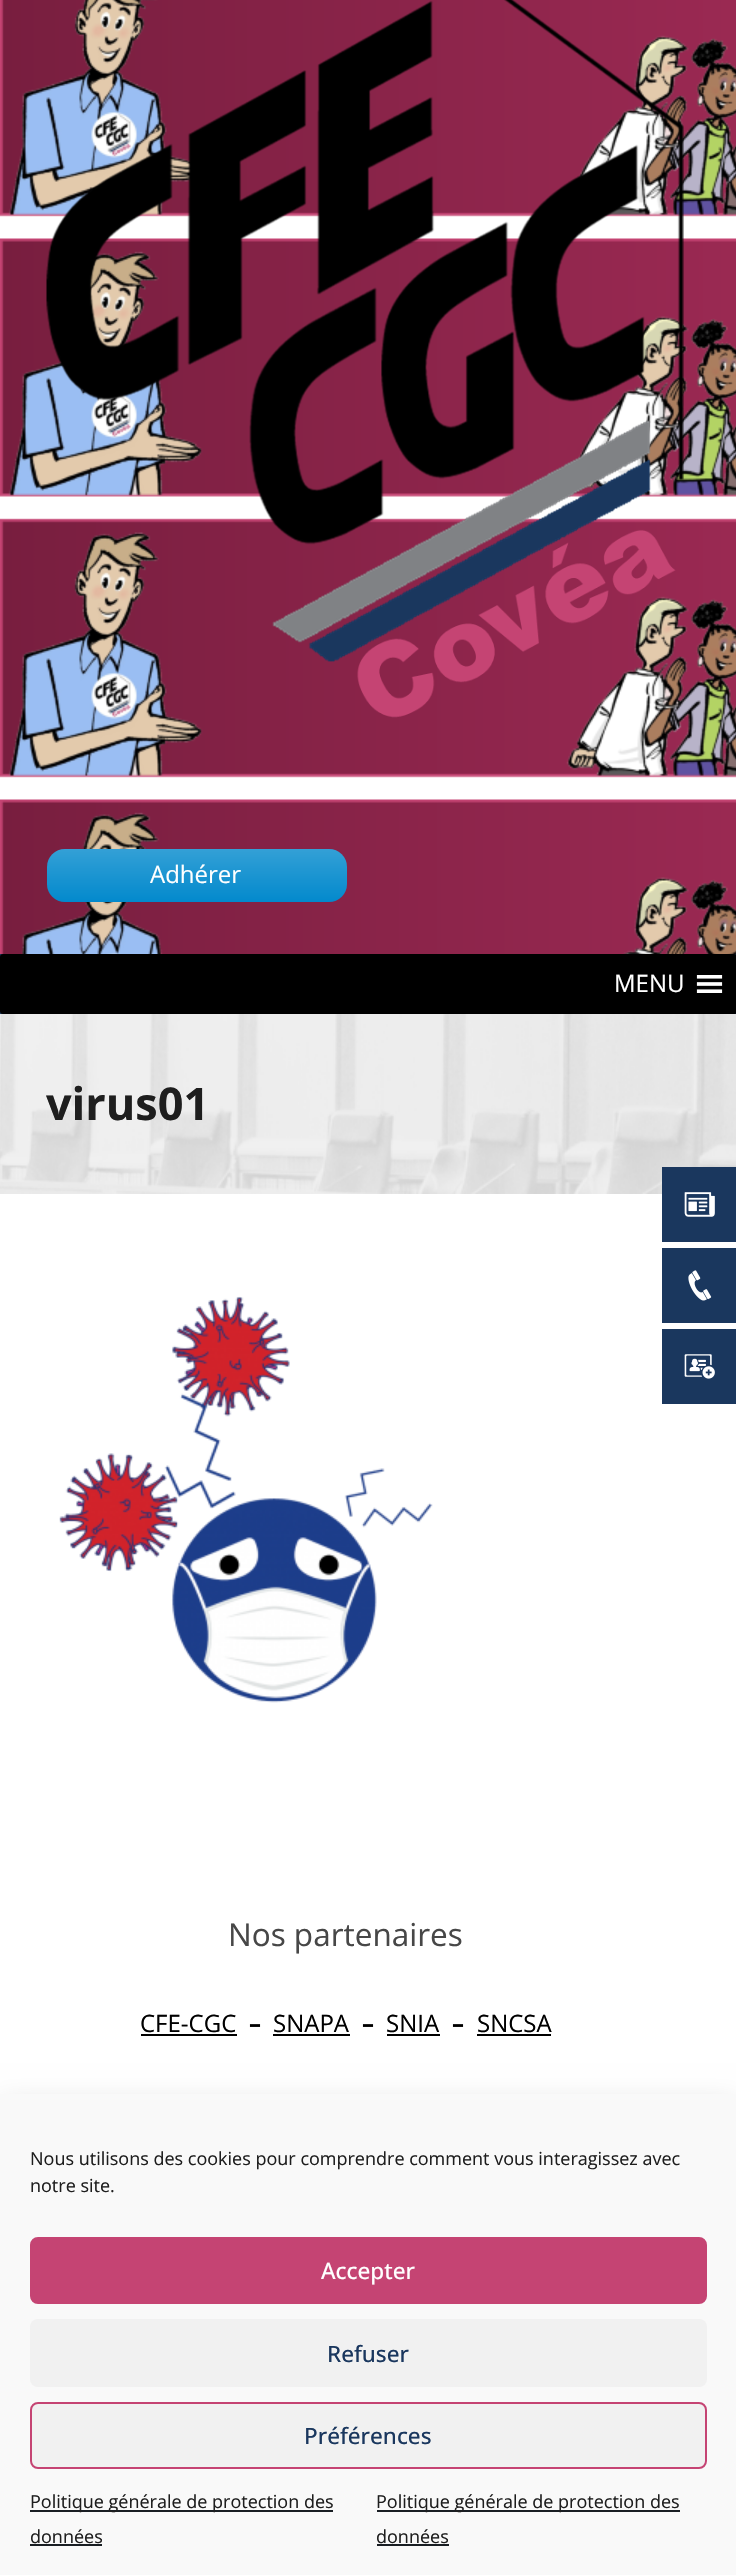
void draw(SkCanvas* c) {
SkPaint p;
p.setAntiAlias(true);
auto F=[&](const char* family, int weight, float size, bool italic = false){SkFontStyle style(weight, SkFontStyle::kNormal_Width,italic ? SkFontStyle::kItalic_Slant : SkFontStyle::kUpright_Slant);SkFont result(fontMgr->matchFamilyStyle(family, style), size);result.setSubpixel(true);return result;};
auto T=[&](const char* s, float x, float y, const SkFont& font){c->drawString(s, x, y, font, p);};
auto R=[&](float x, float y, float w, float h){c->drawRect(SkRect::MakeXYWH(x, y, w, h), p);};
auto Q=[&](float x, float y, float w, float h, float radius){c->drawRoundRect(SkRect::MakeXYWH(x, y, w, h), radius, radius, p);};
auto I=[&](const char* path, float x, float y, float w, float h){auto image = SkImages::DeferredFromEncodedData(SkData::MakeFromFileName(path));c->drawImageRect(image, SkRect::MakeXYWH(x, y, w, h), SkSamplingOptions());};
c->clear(0xffffffff);
I("1.png",0,0,736,954);
I("2.png",46,0,638,718);
p.setColor(0xff0088cc);
Q(47,849,300,53,18);
{
const SkColor colors[] = {0x33ffffff,0x03ffffff};
const float stops[] = {0,1};
const SkPoint ends[] = {{197,849}, {197,902}};
p.setShader(SkGradientShader::MakeLinear(ends, colors, stops, 2, SkTileMode::kClamp));
p.setAlpha(255);
}
Q(47,849,300,53,18);
auto f1 = F("Open Sans",400,24);
p.setShader(nullptr);
p.setColor(0xffffffff);
T("Adhérer",150,883,f1);
p.setColor(0xff1a375e);
R(0,954,736,60);
p.setColor(0xff000000);
Q(0,954,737,60,3);
p.setColor(0xffffffff);
T("MENU",614,992,f1);
I("3.png",696,975,27,18);
p.setColor(0xffeeeeee);
R(0,1014,736,180);
I("4.png",0,1014,736,180);
auto f2 = F("Open Sans",700,45);
p.setColor(0xff1e1e1e);
T("virus01",46,1120,f2);
I("5.png",59,1296,374,407);
auto f3 = F("Open Sans",400,31.5);
p.setColor(0xff474747);
T("Nos partenaires",228,1946,f3);
p.setColor(0xff000000);
T("CFE-CGC",140,2032,f1);
R(141,2034,96,2);
auto f4 = F("Open Sans",700,24);
T("–",249,2032,f4);
T("SNAPA",273,2032,f1);
R(273,2034,77,2);
T("–",362,2032,f4);
T("SNIA",386,2032,f1);
R(387,2034,53,2);
T("–",452,2032,f4);
T("SNCSA",477,2032,f1);
R(477,2034,74,2);
p.setColor(0xff1a375e);
R(662,1167,74,75);
I("6.png",684,1192,31,25);
R(662,1248,74,75);
I("7.png",688,1270,24,31);
R(662,1329,74,75);
I("8.png",684,1354,31,25);
p.setColor(0x30000000);
p.setMaskFilter(SkMaskFilter::MakeBlur(kNormal_SkBlurStyle, 15));
c->drawRect(SkRect::MakeXYWH(0,2108,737,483),p);
p.setMaskFilter(nullptr);
p.setColor(0xfff9f9f9);
R(0,2094,736,481);
auto f5 = F("Open Sans",400,18);
p.setColor(0xff1e1e1e);
T("Nous utilisons des cookies pour comprendre comment vous interagissez avec",30,2165,f5);
T("notre site.",30,2192,f5);
p.setColor(0xffc54473);
c->drawRoundRect(SkRect::MakeXYWH(31,2238,675,65),7,7,p);
p.setStroke(true);
p.setStrokeWidth(2);
c->drawRoundRect(SkRect::MakeXYWH(31,2238,675,65),7,7,p);
auto f6 = F("Open Sans",500,22.5);
p.setStroke(false);
p.setColor(0xffffffff);
T("Accepter",321,2279,f6);
p.setColor(0xfff1f1f1);
Q(30,2319,677,68,8);
p.setColor(0xff1a375e);
T("Refuser",327,2362,f6);
p.setColor(0xfff1f1f1);
c->drawRoundRect(SkRect::MakeXYWH(31,2403,675,65),7,7,p);
p.setStroke(true);
p.setColor(0xffc54473);
c->drawRoundRect(SkRect::MakeXYWH(31,2403,675,65),7,7,p);
p.setStroke(false);
p.setColor(0xff1a375e);
T("Préférences",304,2444,f6);
p.setColor(0xff191e23);
R(30,2510,303,2);
p.setColor(0xff1e1e1e);
T("Politique générale de protection des",30,2508,f5);
T("données",30,2543,f5);
p.setColor(0xff191e23);
R(30,2544,72,2);
R(377,2510,303,2);
p.setColor(0xff1e1e1e);
T("Politique générale de protection des",376,2508,f5);
T("données",376,2543,f5);
p.setColor(0xff191e23);
R(377,2544,72,2);
}
